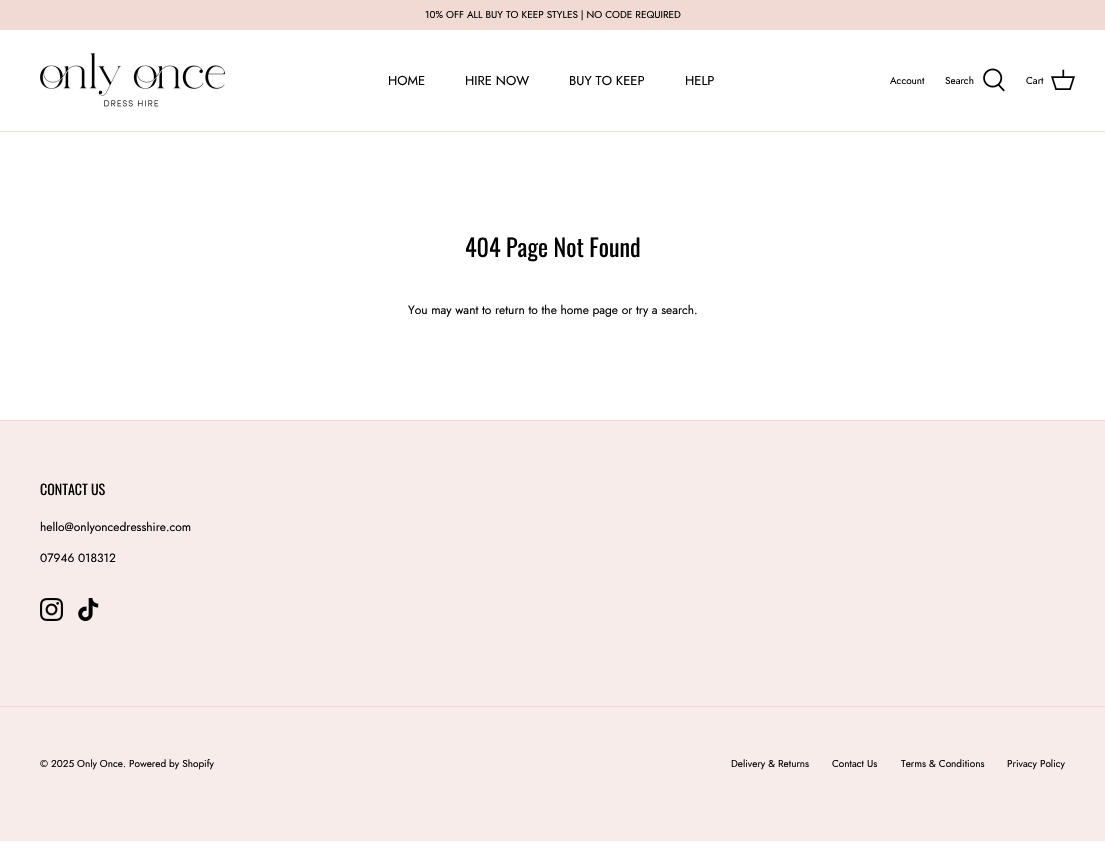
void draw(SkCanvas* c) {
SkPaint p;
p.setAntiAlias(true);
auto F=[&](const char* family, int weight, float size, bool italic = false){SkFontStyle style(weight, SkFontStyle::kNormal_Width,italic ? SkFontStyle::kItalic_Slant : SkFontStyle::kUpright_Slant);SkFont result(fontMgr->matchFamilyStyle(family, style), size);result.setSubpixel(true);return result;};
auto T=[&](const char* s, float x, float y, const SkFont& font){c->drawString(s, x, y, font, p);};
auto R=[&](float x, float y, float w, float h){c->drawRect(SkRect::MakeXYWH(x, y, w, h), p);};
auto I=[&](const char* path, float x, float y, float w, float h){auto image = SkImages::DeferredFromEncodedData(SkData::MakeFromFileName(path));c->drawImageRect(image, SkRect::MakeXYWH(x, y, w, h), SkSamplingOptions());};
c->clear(0xffffffff);
p.setColor(0xfff1dad3);
R(0,0,1105,30);
auto f1 = F("Jost",400,10);
p.setColor(0xff000000);
T("10% OFF ALL BUY TO KEEP STYLES | NO CODE REQUIRED",425,18,f1);
p.setColor(0xfff1dad3);
R(0,131,1105,1);
I("1.png",40,53,185,55);
auto f2 = F("Jost",400,13);
p.setColor(0xff000000);
T("HOME",388,85,f2);
T("HIRE NOW",465,85,f2);
T("BUY TO KEEP",569,85,f2);
T("HELP",685,85,f2);
T("Account",890,84,f1);
T("Search",945,84,f1);
I("2.png",983,68,22,24);
T("Cart",1026,84,f1);
I("3.png",1051,69,24,21);
auto f3 = F("Oswald",400,24);
T("404 Page Not Found",465,257,f3);
auto f4 = F("Jost",400,12);
T("You may want to return to the home page or try a search.",408,314,f4);
p.setColor(0xfff7ece9);
R(0,421,1105,420);
p.setColor(0xfff1dad3);
R(0,420,1105,1);
auto f5 = F("Oswald",400,14);
p.setColor(0xff000000);
T("CONTACT US",40,495,f5);
T("hello@onlyoncedresshire.com",40,531,f4);
T("07946 018312",40,562,f4);
I("4.png",40,598,23,23);
I("5.png",78,598,21,23);
p.setColor(0xfff1dad3);
R(0,706,1105,1);
p.setColor(0xff000000);
T("© 2025 Only Once. Powered by Shopify",40,767,f1);
T("Delivery & Returns",731,767,f1);
T("Contact Us",832,767,f1);
T("Terms & Conditions",901,767,f1);
T("Privacy Policy",1007,767,f1);
}
